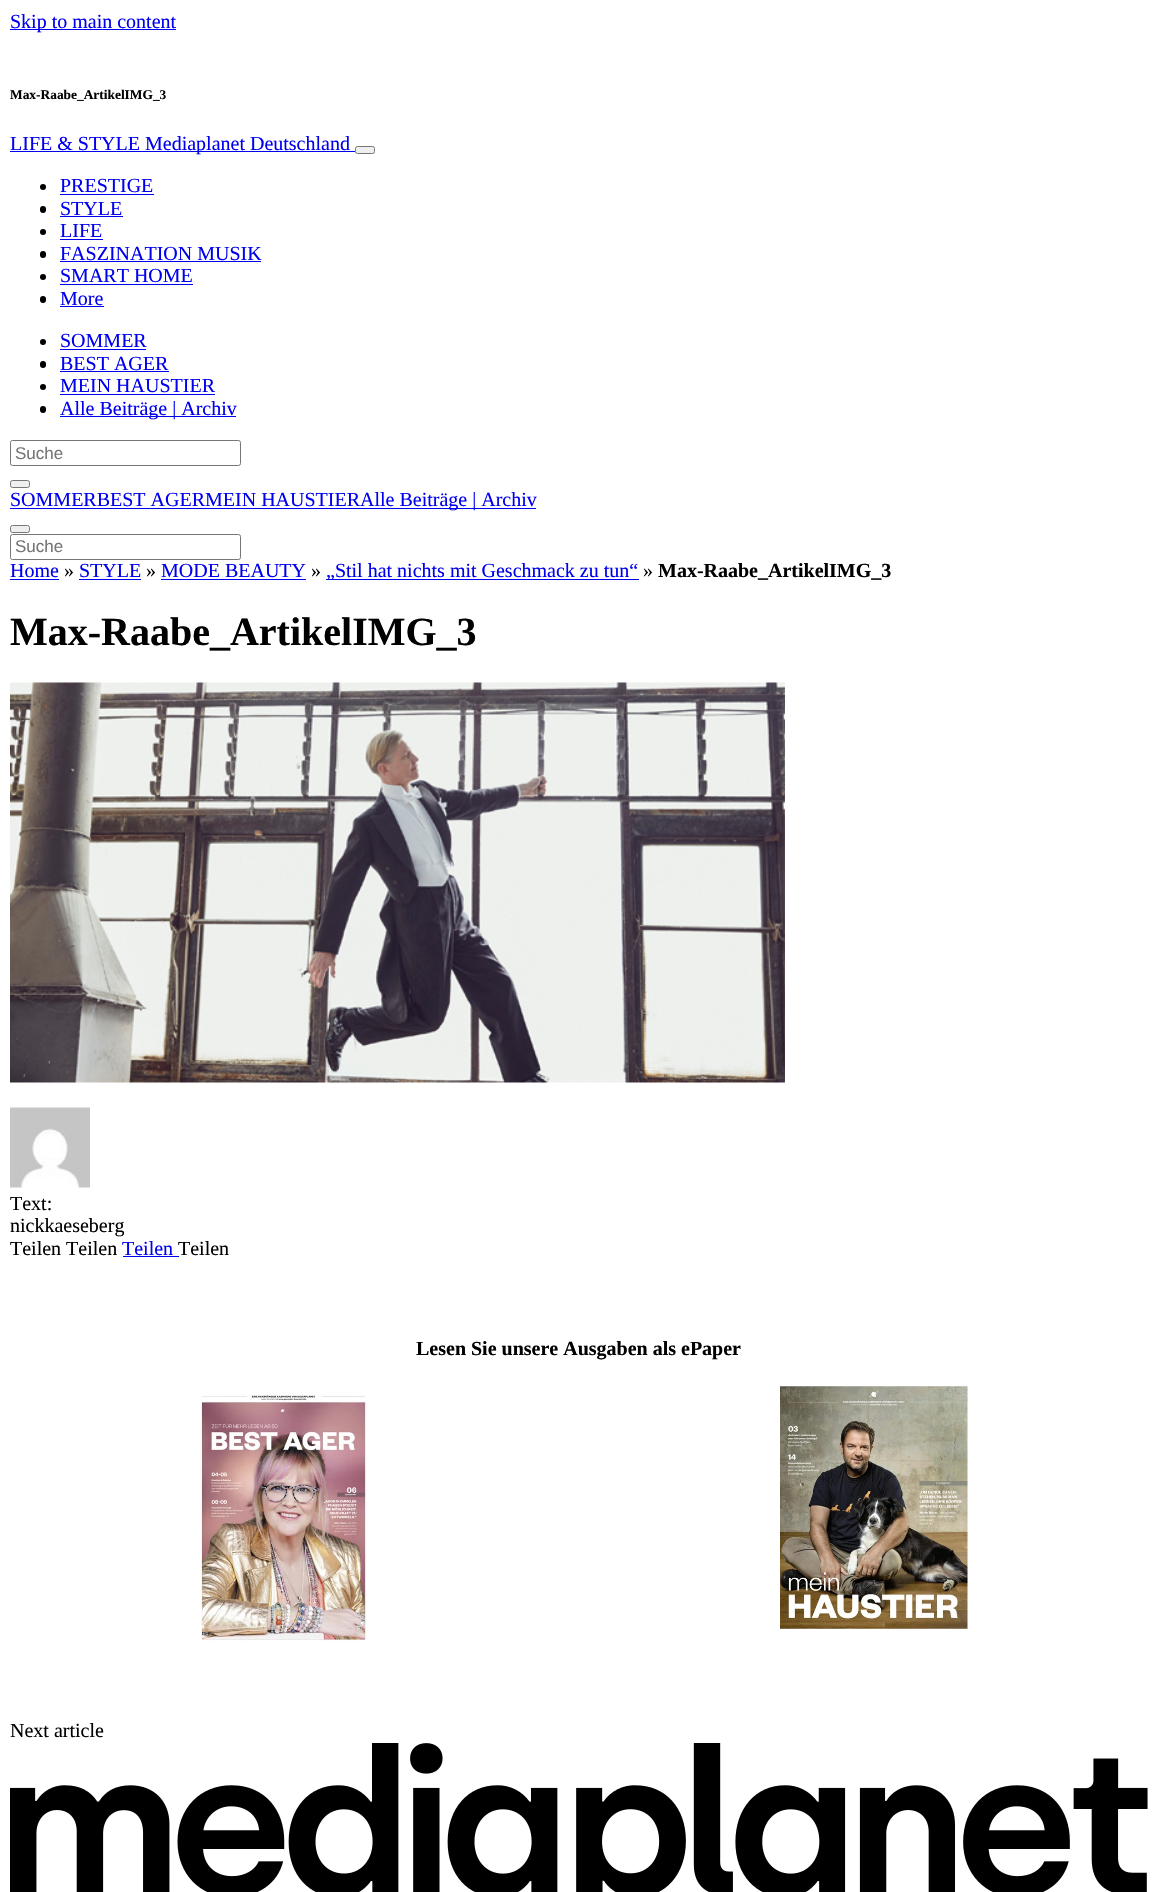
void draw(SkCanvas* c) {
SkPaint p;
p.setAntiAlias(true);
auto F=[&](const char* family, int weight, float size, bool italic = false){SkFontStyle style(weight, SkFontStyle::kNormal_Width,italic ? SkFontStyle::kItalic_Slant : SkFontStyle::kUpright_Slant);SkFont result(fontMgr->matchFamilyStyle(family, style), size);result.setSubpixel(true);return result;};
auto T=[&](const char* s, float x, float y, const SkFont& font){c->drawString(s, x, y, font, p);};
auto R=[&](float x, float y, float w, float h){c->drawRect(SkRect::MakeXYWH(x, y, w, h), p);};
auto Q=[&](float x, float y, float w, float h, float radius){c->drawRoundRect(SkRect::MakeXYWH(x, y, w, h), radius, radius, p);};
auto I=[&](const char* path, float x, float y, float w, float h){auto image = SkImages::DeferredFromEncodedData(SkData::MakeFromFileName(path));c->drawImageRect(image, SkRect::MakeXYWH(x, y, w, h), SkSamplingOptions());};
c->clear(0xffffffff);
p.setColor(0xff0000ee);
R(10,29,166,1);
auto f1 = F("Liberation Serif",400,20);
T("Skip to main content",10,28,f1);
auto f2 = F("Liberation Serif",700,13.4);
p.setColor(0xff000000);
T("Max-Raabe_ArtikelIMG_3",10,99,f2);
p.setColor(0xff0000ee);
R(10,151,345,1);
T("LIFE & STYLE Mediaplanet Deutschland",10,150,f1);
p.setColor(0xffefefef);
c->drawRoundRect(SkRect::MakeXYWH(355.5,146.5,19,7),2,2,p);
p.setStroke(true);
p.setStrokeWidth(1);
p.setColor(0xff767676);
c->drawRoundRect(SkRect::MakeXYWH(355.5,146.5,19,7),2,2,p);
p.setStroke(false);
p.setColor(0xff000000);
c->drawCircle(43,187,3,p);
p.setColor(0xff0000ee);
T("PRESTIGE",60,192,f1);
R(60,194,94,1);
p.setColor(0xff000000);
Q(40,206,6,7,3);
p.setColor(0xff0000ee);
T("STYLE",60,215,f1);
R(60,216,63,1);
p.setColor(0xff000000);
c->drawCircle(43,232,3,p);
p.setColor(0xff0000ee);
T("LIFE",60,237,f1);
R(60,239,43,1);
p.setColor(0xff000000);
Q(40,251,6,7,3);
p.setColor(0xff0000ee);
T("FASZINATION MUSIK",60,260,f1);
R(60,261,201,1);
p.setColor(0xff000000);
c->drawCircle(43,277,3,p);
p.setColor(0xff0000ee);
T("SMART HOME",60,282,f1);
R(60,284,133,1);
p.setColor(0xff000000);
Q(40,296,6,7,3);
p.setColor(0xff0000ee);
T("More",60,305,f1);
R(60,306,44,1);
p.setColor(0xff000000);
c->drawCircle(43,342,3,p);
p.setColor(0xff0000ee);
T("SOMMER",60,347,f1);
R(60,349,86,1);
p.setColor(0xff000000);
Q(40,361,6,7,3);
p.setColor(0xff0000ee);
T("BEST AGER",60,370,f1);
R(60,371,109,1);
p.setColor(0xff000000);
c->drawCircle(43,387,3,p);
p.setColor(0xff0000ee);
T("MEIN HAUSTIER",60,392,f1);
R(60,394,155,1);
p.setColor(0xff000000);
Q(40,406,6,7,3);
p.setColor(0xff0000ee);
R(60,416,176,1);
T("Alle Beiträge | Archiv",60,415,f1);
p.setStroke(true);
p.setColor(0xff767676);
c->drawRoundRect(SkRect::MakeXYWH(10.5,440.5,230,25),2,2,p);
auto f3 = F("Liberation Sans",400,17);
p.setStroke(false);
p.setColor(0xff757575);
T("Suche",15,459,f3);
p.setColor(0xffefefef);
c->drawRoundRect(SkRect::MakeXYWH(10.5,480.5,19,7),2,2,p);
p.setStroke(true);
p.setColor(0xff767676);
c->drawRoundRect(SkRect::MakeXYWH(10.5,480.5,19,7),2,2,p);
p.setStroke(false);
p.setColor(0xff0000ee);
R(10,508,526,1);
T("SOMMERBEST AGERMEIN HAUSTIERAlle Beiträge | Archiv",10,506,f1);
p.setColor(0xffefefef);
c->drawRoundRect(SkRect::MakeXYWH(10.5,525.5,19,7),2,2,p);
p.setStroke(true);
p.setColor(0xff767676);
c->drawRoundRect(SkRect::MakeXYWH(10.5,525.5,19,7),2,2,p);
c->drawRoundRect(SkRect::MakeXYWH(10.5,534.5,230,25),2,2,p);
p.setStroke(false);
p.setColor(0xff757575);
T("Suche",15,552,f3);
p.setColor(0xff0000ee);
T("Home",10,577,f1);
R(10,579,49,1);
p.setColor(0xff000000);
T("»",64,577,f1);
p.setColor(0xff0000ee);
T("STYLE",79,577,f1);
R(79,579,62,1);
p.setColor(0xff000000);
T("»",146,577,f1);
p.setColor(0xff0000ee);
T("MODE BEAUTY",161,577,f1);
R(161,579,145,1);
p.setColor(0xff000000);
T("»",311,577,f1);
p.setColor(0xff0000ee);
R(326,579,313,1);
T("„Stil hat nichts mit Geschmack zu tun“",326,577,f1);
p.setColor(0xff000000);
T("»",643,577,f1);
auto f4 = F("Liberation Serif",700,20);
T("Max-Raabe_ArtikelIMG_3",658,577,f4);
auto f5 = F("Liberation Serif",700,40);
T("Max-Raabe_ArtikelIMG_3",10,645,f5);
I("1.png",10,682,775,401);
I("2.png",10,1107,80,81);
T("Text:",10,1210,f1);
T("nickkaeseberg",10,1232,f1);
T("Teilen Teilen",10,1255,f1);
p.setColor(0xff0000ee);
T("Teilen",122,1255,f1);
R(123,1256,56,1);
p.setColor(0xff000000);
T("Teilen",178,1255,f1);
T("Lesen Sie unsere Ausgaben als ePaper",416,1355,f4);
I("3.png",200,1395,167,246);
I("4.png",780,1386,188,243);
T("Next article",10,1737,f1);
I("5.png",10,1743,1138,149);
}
